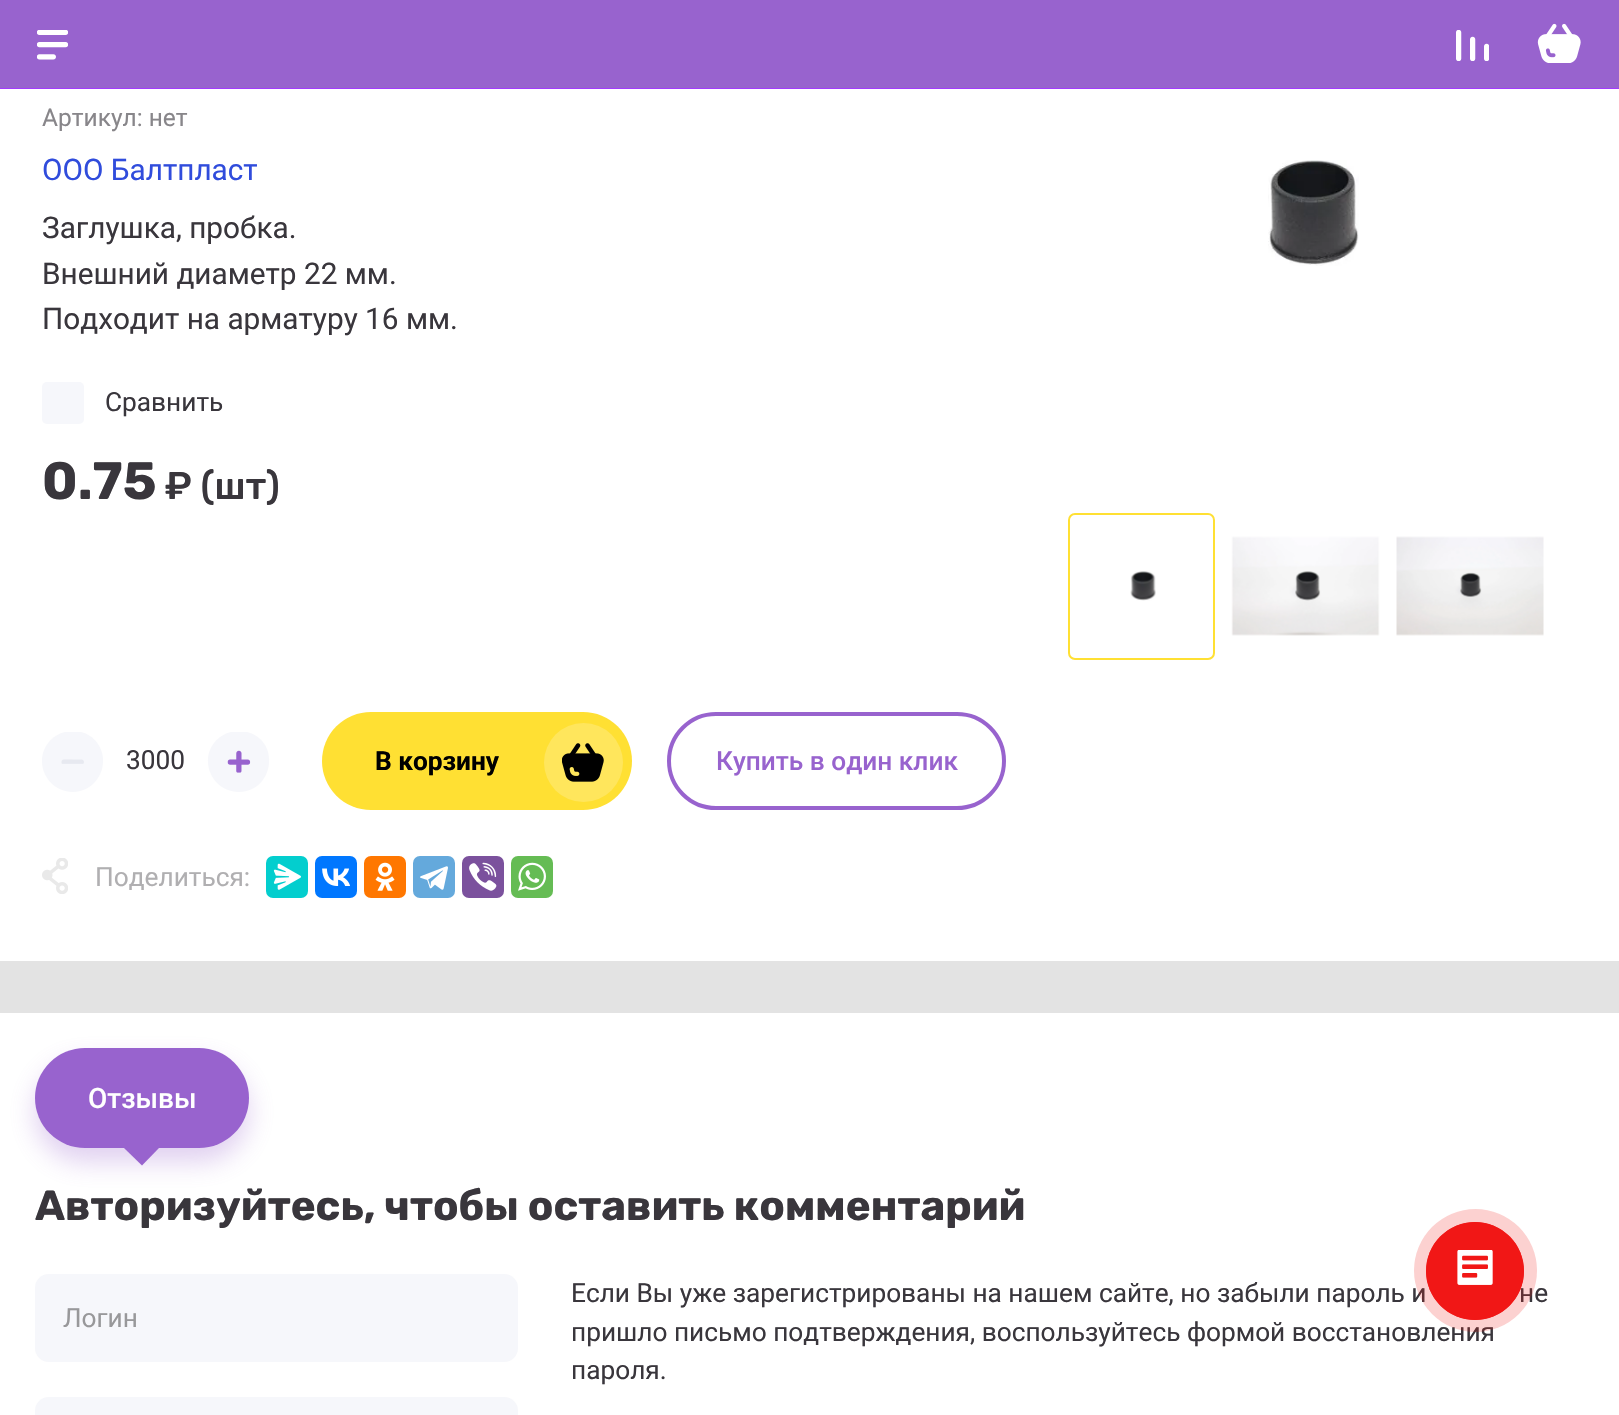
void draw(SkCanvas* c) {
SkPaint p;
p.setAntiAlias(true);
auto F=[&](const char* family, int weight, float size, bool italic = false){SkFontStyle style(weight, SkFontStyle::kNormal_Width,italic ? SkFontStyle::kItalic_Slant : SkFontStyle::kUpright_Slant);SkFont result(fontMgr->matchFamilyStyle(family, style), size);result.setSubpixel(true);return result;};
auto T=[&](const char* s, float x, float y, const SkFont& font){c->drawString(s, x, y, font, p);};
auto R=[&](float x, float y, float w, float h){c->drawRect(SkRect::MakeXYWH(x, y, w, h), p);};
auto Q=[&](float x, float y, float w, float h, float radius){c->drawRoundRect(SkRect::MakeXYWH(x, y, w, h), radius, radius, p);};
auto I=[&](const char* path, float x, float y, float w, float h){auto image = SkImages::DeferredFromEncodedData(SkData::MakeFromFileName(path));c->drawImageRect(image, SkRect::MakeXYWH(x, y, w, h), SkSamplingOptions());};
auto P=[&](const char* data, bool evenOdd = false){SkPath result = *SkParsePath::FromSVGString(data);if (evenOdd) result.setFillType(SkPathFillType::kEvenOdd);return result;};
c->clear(0xffe3e3e3);
p.setColor(0xffa33bfe);
c->drawPath(P("M0 88v1h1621v-87h-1v86z"),p);
p.setColor(0xff9863ce);
R(0,0,1619,88);
I("1.png",37,30,31,30);
I("2.png",1456,30,33,31);
I("3.png",1537,23,44,40);
p.setColor(0xffffffff);
R(0,89,1619,872);
auto f1 = F("Roboto",400,24.5);
p.setColor(0xff88868a);
T("Артикул: нет",42,126,f1);
auto f2 = F("Roboto",400,29.75);
p.setColor(0xff304cdc);
T("ООО Балтпласт",42,180,f2);
p.setColor(0xff39363c);
T("Заглушка, пробка.",42,238,f2);
T("Внешний диаметр 22 мм.",42,284,f2);
T("Подходит на арматуру 16 мм.",42,329,f2);
p.setColor(0xfff6f7fb);
Q(42,382,42,42,5);
auto f3 = F("Roboto",400,26.25);
p.setColor(0xff39363c);
T("Сравнить",105,411,f3);
auto f4 = F("Rubik",700,52.5);
T("0.75",42,499,f4);
auto f5 = F("Rubik",500,38.5);
T("₽ (шт)",165,499,f5);
I("4.png",1268,160,91,106);
I("5.png",1130,571,26,30);
p.setStroke(true);
p.setStrokeWidth(2);
p.setColor(0xffffe033);
c->drawRoundRect(SkRect::MakeXYWH(1069,514,145,145),6,6,p);
I("6.png",1231,536,149,100);
I("7.png",1396,536,148,100);
c->save();
c->clipRect(SkRect::MakeXYWH(42,732,228,61));
p.setStroke(false);
p.setColor(0xfff6f7fb);
c->drawPath(P("M73 731c17 0 30 13 30 30c0 17-14 31-30 31c-17 0-31-14-31-31c0-17 14-30 31-30z"),p);
c->restore();
I("8.png",61,759,23,5);
p.setColor(0xff39363c);
T("3000",126,769,f3);
c->save();
c->clipRect(SkRect::MakeXYWH(42,732,228,61));
p.setColor(0xfff6f7fb);
c->drawPath(P("M239 731c17 0 31 13 30 30c0 17-13 31-30 31c-17 0-31-14-31-31c0-17 14-30 31-30z"),p);
c->restore();
I("9.png",227,750,24,23);
p.setColor(0xffffe033);
Q(322,712,310,98,49);
auto f6 = F("Roboto",700,26.25);
p.setColor(0xff000000);
T("В корзину",375,770,f6);
p.setColor(0xffffe65c);
c->drawCircle(583.5,762.5,39.5,p);
I("10.png",562,743,42,39);
p.setStroke(true);
p.setStrokeWidth(4);
p.setColor(0xff9863ce);
c->drawRoundRect(SkRect::MakeXYWH(669,714,335,94),47,47,p);
auto f7 = F("Roboto",500,26.25);
p.setStroke(false);
T("Купить в один клик",716,770,f7);
I("11.png",42,858,26,36);
p.setColor(0xffb0afb1);
T("Поделиться:",95,886,f3);
p.setColor(0xff03cece);
Q(266,856,42,42,7);
I("12.png",273,863,28,27);
p.setColor(0xff0077ff);
Q(315,856,42,42,7);
I("13.png",322,868,28,18);
p.setColor(0xffff7700);
Q(364,856,42,42,7);
I("14.png",375,862,20,29);
p.setColor(0xff64a9dc);
Q(413,856,42,42,7);
I("15.png",420,866,28,24);
p.setColor(0xff7b519d);
Q(462,856,42,42,7);
I("16.png",469,862,28,29);
p.setColor(0xff65bc54);
Q(511,856,42,42,7);
I("17.png",518,862,28,29);
p.setColor(0xffffffff);
R(0,1013,1619,402);
p.setColor(0x4d9863ce);
p.setMaskFilter(SkMaskFilter::MakeBlur(kNormal_SkBlurStyle, 13));
c->drawRoundRect(SkRect::MakeXYWH(35,1062,214,100),50,50,p);
p.setMaskFilter(nullptr);
p.setColor(0xff9863ce);
Q(35,1048,214,100,50);
auto f8 = F("Roboto",500,28);
p.setColor(0xffffffff);
T("Отзывы",88,1108,f8);
p.setColor(0xff9863ce);
c->drawPath(P("M124 1148h35l-17 17.5z"),p);
auto f9 = F("Rubik",700,42);
p.setColor(0xff39363c);
T("Авторизуйтесь, чтобы оставить комментарий",35,1220,f9);
p.setColor(0xfff6f7fb);
Q(35,1274,483,88,14);
p.setColor(0xff98989a);
T("Логин",63,1327,f3);
p.setColor(0xfff6f7fb);
Q(35,1397,483,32,14);
p.setColor(0xff39363c);
T("Если Вы уже зарегистрированы на нашем сайте, но забыли пароль и",571,1302,f3);
T("не",1519,1302,f3);
T("пришло письмо подтверждения, воспользуйтесь формой восстановления",571,1341,f3);
T("пароля.",571,1379,f3);
p.setColor(0x33f11716);
c->drawCircle(1475.5,1270.5,61.5,p);
p.setStroke(true);
p.setStrokeWidth(1);
p.setColor(0xfff11716);
c->drawCircle(1475,1271,48.5,p);
p.setStroke(false);
c->drawCircle(1475,1271,49,p);
I("18.png",1457,1250,36,35);
}
